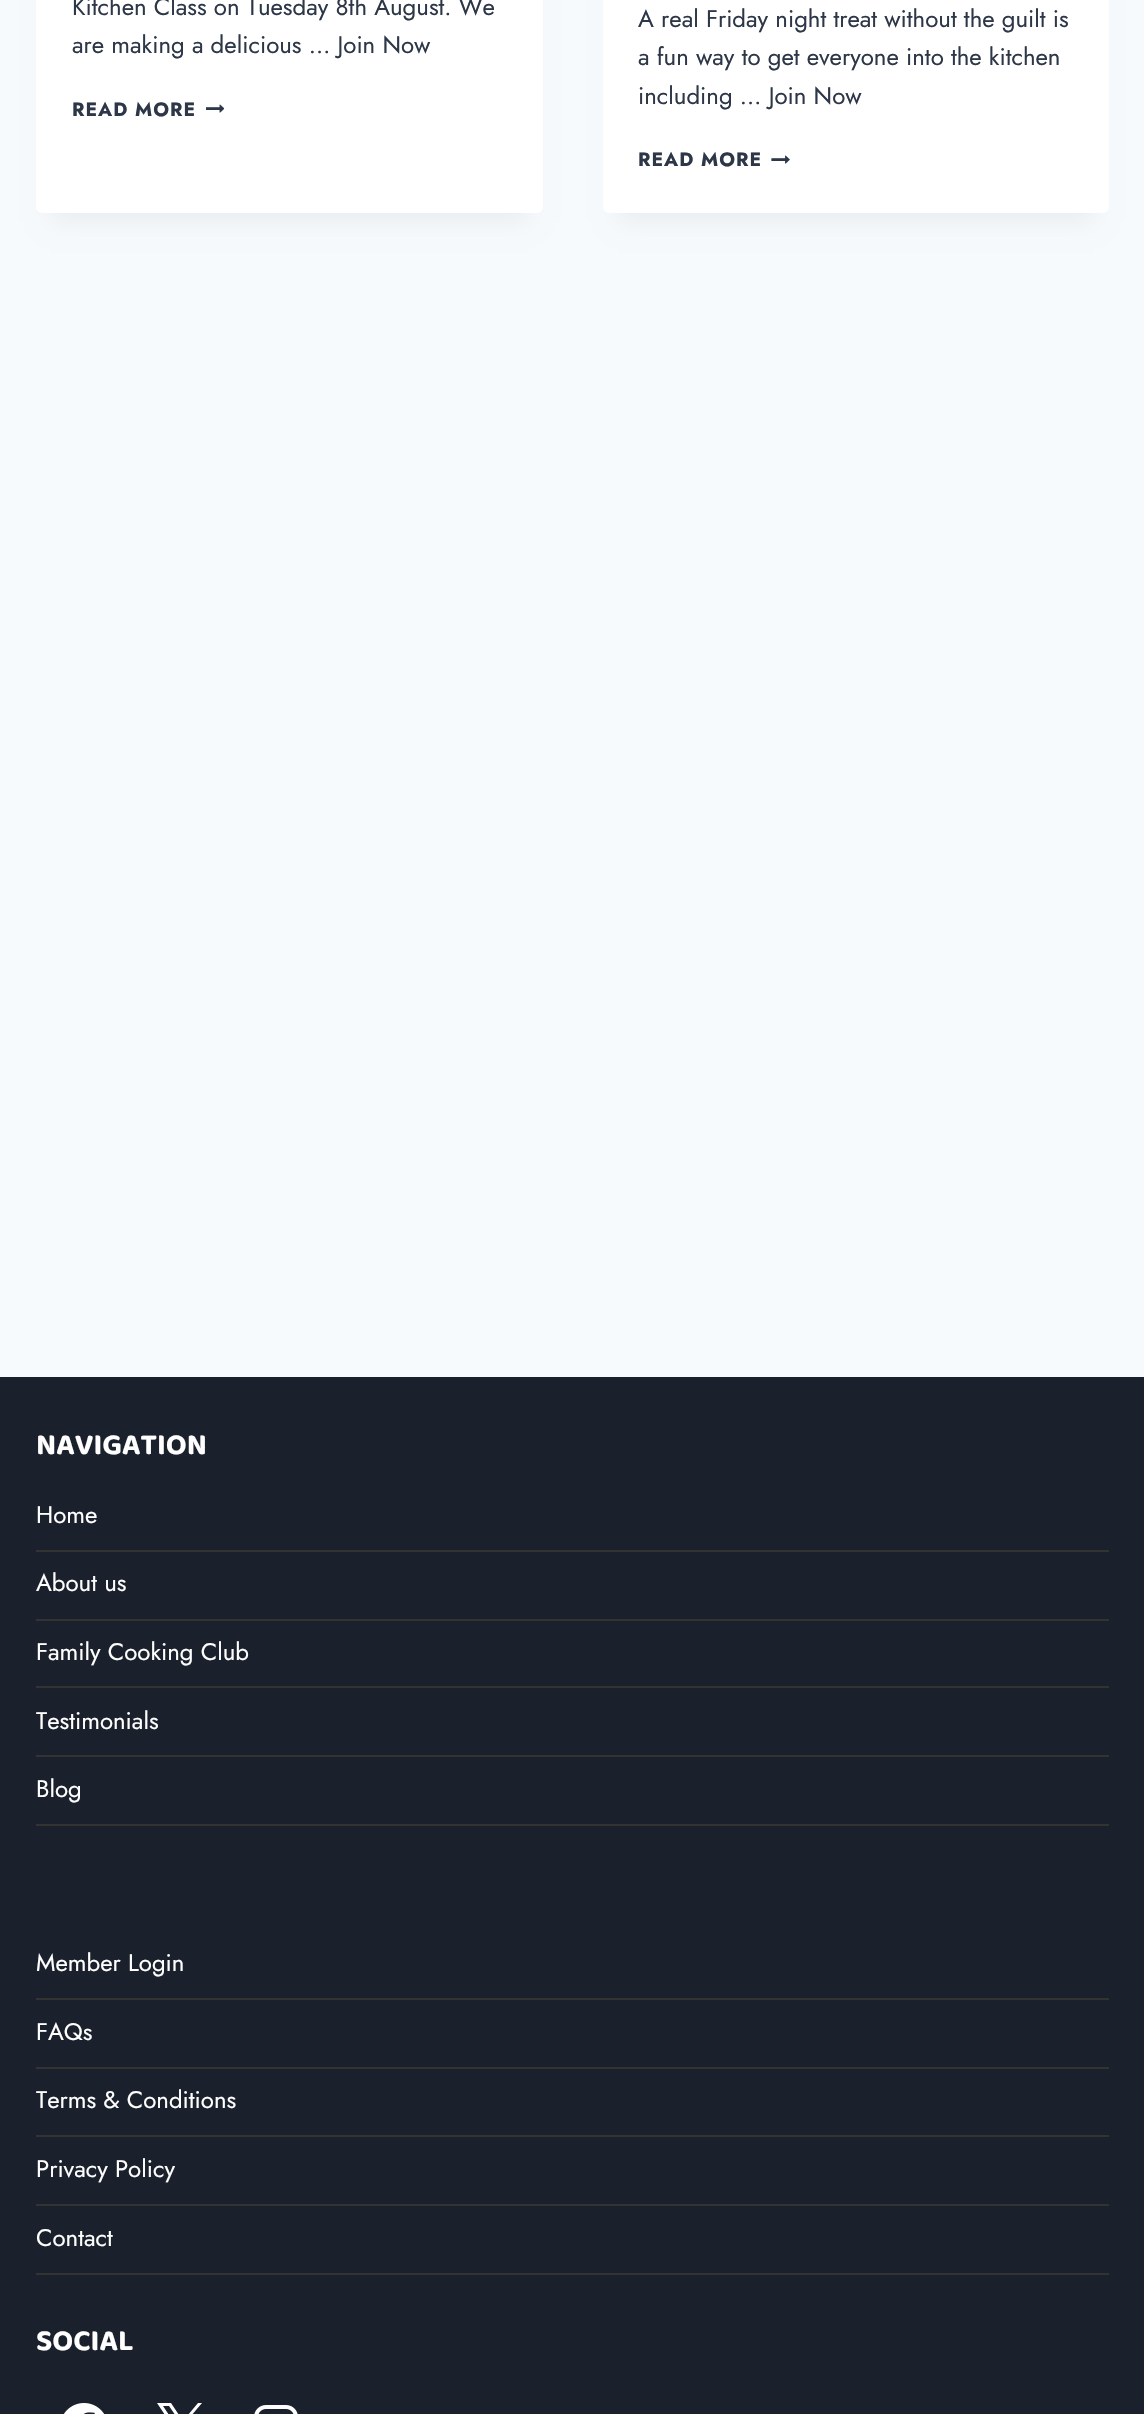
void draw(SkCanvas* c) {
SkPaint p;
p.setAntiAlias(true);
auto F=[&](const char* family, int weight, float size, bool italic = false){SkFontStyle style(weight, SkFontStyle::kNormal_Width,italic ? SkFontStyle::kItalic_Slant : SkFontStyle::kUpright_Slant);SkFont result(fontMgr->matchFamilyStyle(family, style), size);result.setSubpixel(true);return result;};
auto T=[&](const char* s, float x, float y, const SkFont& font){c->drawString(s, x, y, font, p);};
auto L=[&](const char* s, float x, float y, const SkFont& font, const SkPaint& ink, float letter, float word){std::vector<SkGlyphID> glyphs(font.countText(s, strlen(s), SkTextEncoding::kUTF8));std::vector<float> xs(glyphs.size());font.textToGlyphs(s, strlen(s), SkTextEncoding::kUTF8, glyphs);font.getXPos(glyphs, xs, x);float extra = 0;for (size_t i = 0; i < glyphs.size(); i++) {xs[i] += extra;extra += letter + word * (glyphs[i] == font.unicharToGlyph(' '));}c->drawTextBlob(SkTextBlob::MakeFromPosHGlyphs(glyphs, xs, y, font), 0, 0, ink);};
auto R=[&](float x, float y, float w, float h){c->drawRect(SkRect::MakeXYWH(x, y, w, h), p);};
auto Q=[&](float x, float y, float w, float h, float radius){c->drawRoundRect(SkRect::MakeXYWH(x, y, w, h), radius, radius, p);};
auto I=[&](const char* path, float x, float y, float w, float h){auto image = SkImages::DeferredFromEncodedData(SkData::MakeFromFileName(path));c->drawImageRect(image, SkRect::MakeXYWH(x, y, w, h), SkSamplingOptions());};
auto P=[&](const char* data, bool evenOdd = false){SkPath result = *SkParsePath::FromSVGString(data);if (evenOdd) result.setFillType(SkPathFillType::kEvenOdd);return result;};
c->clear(0xfff7fafc);
p.setColor(0x0d000000);
p.setMaskFilter(SkMaskFilter::MakeBlur(kNormal_SkBlurStyle, 11));
c->drawRect(SkRect::MakeXYWH(51,-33,477,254),p);
p.setMaskFilter(nullptr);
p.setColor(0xffffffff);
Q(36,-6,507,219,6);
auto f1 = F("Jost",400,24);
p.setColor(0xff2d3748);
T("Kitchen Class on Tuesday 8th August. We",72,15,f1);
T("are making a delicious … Join Now",72,53,f1);
auto f2 = F("Jost",700,19.25);
L("READ MORE",72,116,f2,p,1,0);
I("1.png",206,104,18,9);
p.setColor(0x0d000000);
p.setMaskFilter(SkMaskFilter::MakeBlur(kNormal_SkBlurStyle, 11));
c->drawRect(SkRect::MakeXYWH(618,-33,476,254),p);
p.setMaskFilter(nullptr);
p.setColor(0xffffffff);
Q(603,-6,506,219,6);
p.setColor(0xff2d3748);
T("A real Friday night treat without the guilt is",638,27,f1);
T("a fun way to get everyone into the kitchen",638,65,f1);
T("including … Join Now",638,104,f1);
L("READ MORE",638,166,f2,p,1,0);
I("2.png",771,155,19,9);
p.setColor(0xff1a202c);
R(0,1377,1144,1037);
auto f3 = F("Baloo Thambi 2",700,30);
p.setColor(0xffffffff);
T("NAVIGATION",36,1454,f3);
p.setColor(0xff333333);
R(36,1550,1073,2);
p.setColor(0xffffffff);
T("Home",36,1523,f1);
p.setColor(0xff333333);
R(36,1619,1073,2);
p.setColor(0xffffffff);
T("About us",36,1591,f1);
p.setColor(0xff333333);
R(36,1686,1073,2);
p.setColor(0xffffffff);
T("Family Cooking Club",36,1660,f1);
p.setColor(0xff333333);
R(36,1755,1073,2);
p.setColor(0xffffffff);
T("Testimonials",36,1729,f1);
p.setColor(0xff333333);
R(36,1824,1073,2);
p.setColor(0xffffffff);
T("Blog",36,1797,f1);
p.setColor(0xff333333);
R(36,1998,1073,2);
p.setColor(0xffffffff);
T("Member Login",36,1971,f1);
p.setColor(0xff333333);
R(36,2067,1073,2);
p.setColor(0xffffffff);
T("FAQs",36,2040,f1);
p.setColor(0xff333333);
R(36,2135,1073,2);
p.setColor(0xffffffff);
T("Terms & Conditions",36,2108,f1);
p.setColor(0xff333333);
R(36,2204,1073,2);
p.setColor(0xffffffff);
T("Privacy Policy",36,2177,f1);
p.setColor(0xff333333);
R(36,2273,1073,2);
p.setColor(0xffffffff);
T("Contact",36,2246,f1);
T("SOCIAL",36,2350,f3);
I("3.png",63,2403,41,11);
c->drawPath(P("M185 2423l17-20h-4l-15 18l-12-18h-14l18 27l-18 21h4l16-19l13 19h14zm-6 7l-16-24h6l29 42h-6z"),p);
I("4.png",254,2405,44,9);
}
